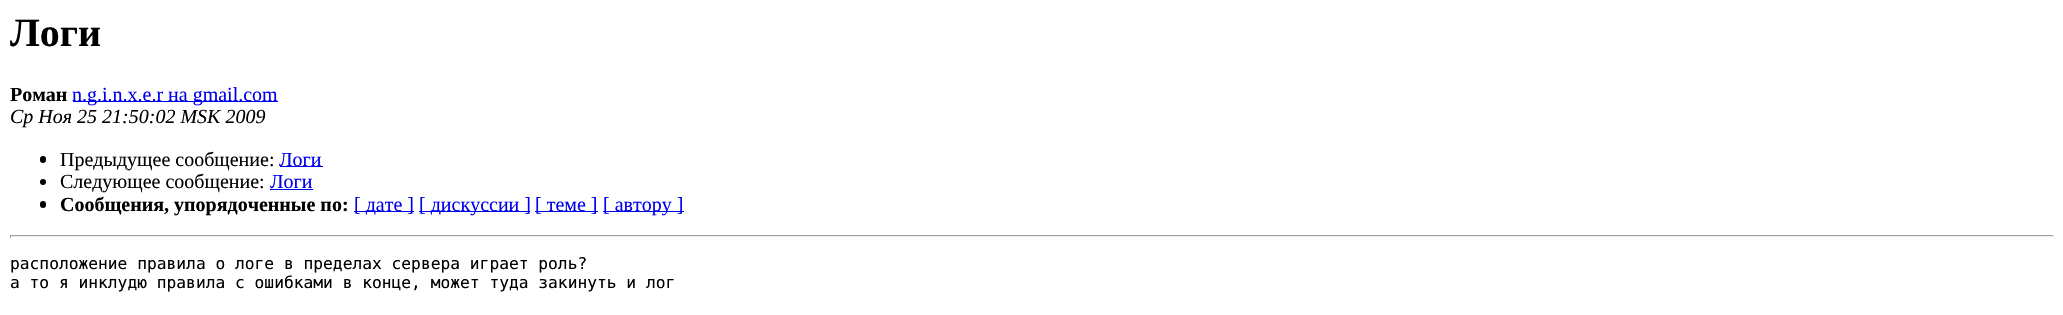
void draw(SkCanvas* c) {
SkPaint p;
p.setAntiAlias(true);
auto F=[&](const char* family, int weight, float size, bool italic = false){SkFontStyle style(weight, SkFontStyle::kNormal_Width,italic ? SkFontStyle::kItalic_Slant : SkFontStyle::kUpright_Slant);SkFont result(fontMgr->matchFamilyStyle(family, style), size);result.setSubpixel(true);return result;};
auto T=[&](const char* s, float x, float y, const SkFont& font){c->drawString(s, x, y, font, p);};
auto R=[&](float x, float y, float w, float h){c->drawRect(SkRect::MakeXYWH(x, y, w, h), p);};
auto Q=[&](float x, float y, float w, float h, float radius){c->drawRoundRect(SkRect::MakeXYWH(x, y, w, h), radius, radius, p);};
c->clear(0xffffffff);
auto f1 = F("Liberation Serif",700,40);
p.setColor(0xff000000);
T("Логи",10,46,f1);
auto f2 = F("Liberation Serif",700,20);
T("Роман",10,101,f2);
p.setColor(0xff0000ee);
R(73,101,205,1);
auto f3 = F("Liberation Serif",400,20);
T("n.g.i.n.x.e.r на gmail.com",72,101,f3);
auto f4 = F("Liberation Serif",400,20,true);
p.setColor(0xff000000);
T("Ср Ноя 25 21:50:02 MSK 2009",10,123,f4);
Q(40,156,6,7,3);
T("Предыдущее сообщение:",60,166,f3);
p.setColor(0xff0000ee);
R(280,166,43,1);
T("Логи",279,166,f3);
p.setColor(0xff000000);
c->drawCircle(43,182,3,p);
T("Следующее сообщение:",60,188,f3);
p.setColor(0xff0000ee);
T("Логи",270,188,f3);
R(270,189,43,1);
p.setColor(0xff000000);
Q(40,201,6,7,3);
T("Сообщения, упорядоченные по:",60,211,f2);
p.setColor(0xff0000ee);
R(354,211,60,1);
T("[ дате ]",354,211,f3);
R(419,211,111,1);
T("[ дискуссии ]",419,211,f3);
R(535,211,63,1);
T("[ теме ]",535,211,f3);
R(603,211,81,1);
T("[ автору ]",603,211,f3);
p.setColor(0xff9f9f9f);
R(10,235,2044,1);
p.setColor(0xffeeeeee);
R(2053,235,1,3);
R(10,236,2044,1);
p.setColor(0xff9f9f9f);
R(10,235,1,3);
auto f5 = F("DejaVu Sans Mono",400,16.25);
p.setColor(0xff000000);
T("расположение правила о логе в пределах сервера играет роль?",10,269,f5);
T("а то я инклудю правила с ошибками в конце, может туда закинуть и лог",10,288,f5);
}
